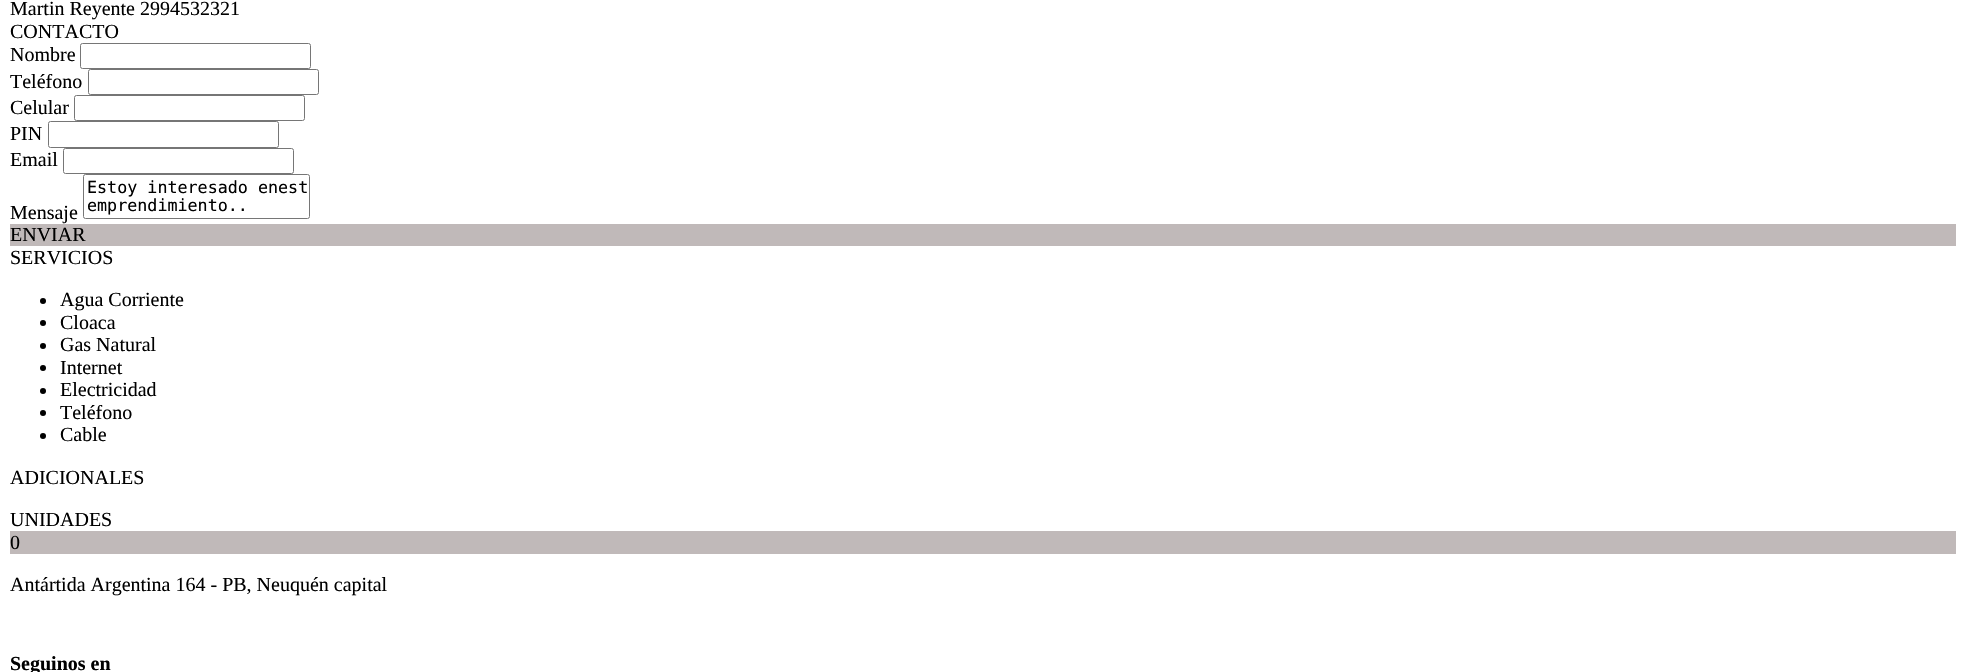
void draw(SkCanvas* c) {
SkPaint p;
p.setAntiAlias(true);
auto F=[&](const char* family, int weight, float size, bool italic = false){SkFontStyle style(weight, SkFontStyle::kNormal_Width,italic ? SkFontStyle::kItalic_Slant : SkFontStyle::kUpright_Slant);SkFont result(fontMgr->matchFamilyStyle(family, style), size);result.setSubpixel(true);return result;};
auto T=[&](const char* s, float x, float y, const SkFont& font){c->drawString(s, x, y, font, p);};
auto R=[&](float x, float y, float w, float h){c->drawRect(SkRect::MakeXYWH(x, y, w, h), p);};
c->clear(0xffffffff);
auto f1 = F("Liberation Serif",400,20);
p.setColor(0xff000000);
T("Martin Reyente 2994532321",10,15,f1);
T("CONTACTO",10,38,f1);
T("Nombre",10,61,f1);
p.setStroke(true);
p.setStrokeWidth(1);
p.setColor(0xff767676);
c->drawRoundRect(SkRect::MakeXYWH(80.5,43.5,230,25),2,2,p);
p.setStroke(false);
p.setColor(0xff000000);
T("Teléfono",10,88,f1);
p.setStroke(true);
p.setColor(0xff767676);
c->drawRoundRect(SkRect::MakeXYWH(88.5,69.5,230,25),2,2,p);
p.setStroke(false);
p.setColor(0xff000000);
T("Celular",10,114,f1);
p.setStroke(true);
p.setColor(0xff767676);
c->drawRoundRect(SkRect::MakeXYWH(74.5,95.5,230,25),2,2,p);
p.setStroke(false);
p.setColor(0xff000000);
T("PIN",10,140,f1);
p.setStroke(true);
p.setColor(0xff767676);
c->drawRoundRect(SkRect::MakeXYWH(48.5,121.5,230,26),2,2,p);
p.setStroke(false);
p.setColor(0xff000000);
T("Email",10,166,f1);
p.setStroke(true);
p.setColor(0xff767676);
c->drawRoundRect(SkRect::MakeXYWH(63.5,148.5,230,25),2,2,p);
p.setStroke(false);
p.setColor(0xff000000);
T("Mensaje",10,219,f1);
p.setStroke(true);
p.setColor(0xff767676);
c->drawRoundRect(SkRect::MakeXYWH(83.5,174.5,226,44),2,2,p);
auto f2 = F("DejaVu Sans Mono",400,16.7);
p.setStroke(false);
p.setColor(0xff000000);
T("Estoy interesado enest",87,193,f2);
T("emprendimiento..",87,211,f2);
p.setColor(0xffc0b9b9);
R(10,224,1946,22);
p.setColor(0xff000000);
T("ENVIAR",10,241,f1);
T("SERVICIOS",10,264,f1);
c->drawCircle(43,301,3,p);
T("Agua Corriente",60,306,f1);
c->drawCircle(43,323,3,p);
T("Cloaca",60,329,f1);
c->drawCircle(43,346,3,p);
T("Gas Natural",60,351,f1);
c->drawCircle(43,368,3,p);
T("Internet",60,374,f1);
c->drawCircle(43,391,3,p);
T("Electricidad",60,396,f1);
c->drawCircle(43,413,3,p);
T("Teléfono",60,419,f1);
c->drawCircle(43,436,3,p);
T("Cable",60,441,f1);
T("ADICIONALES",10,484,f1);
T("UNIDADES",10,526,f1);
p.setColor(0xffc0b9b9);
R(10,531,1946,23);
p.setColor(0xff000000);
T("0",10,549,f1);
T("Antártida Argentina 164 - PB, Neuquén capital",10,591,f1);
auto f3 = F("Liberation Serif",700,20);
T("Seguinos en",10,670,f3);
}
